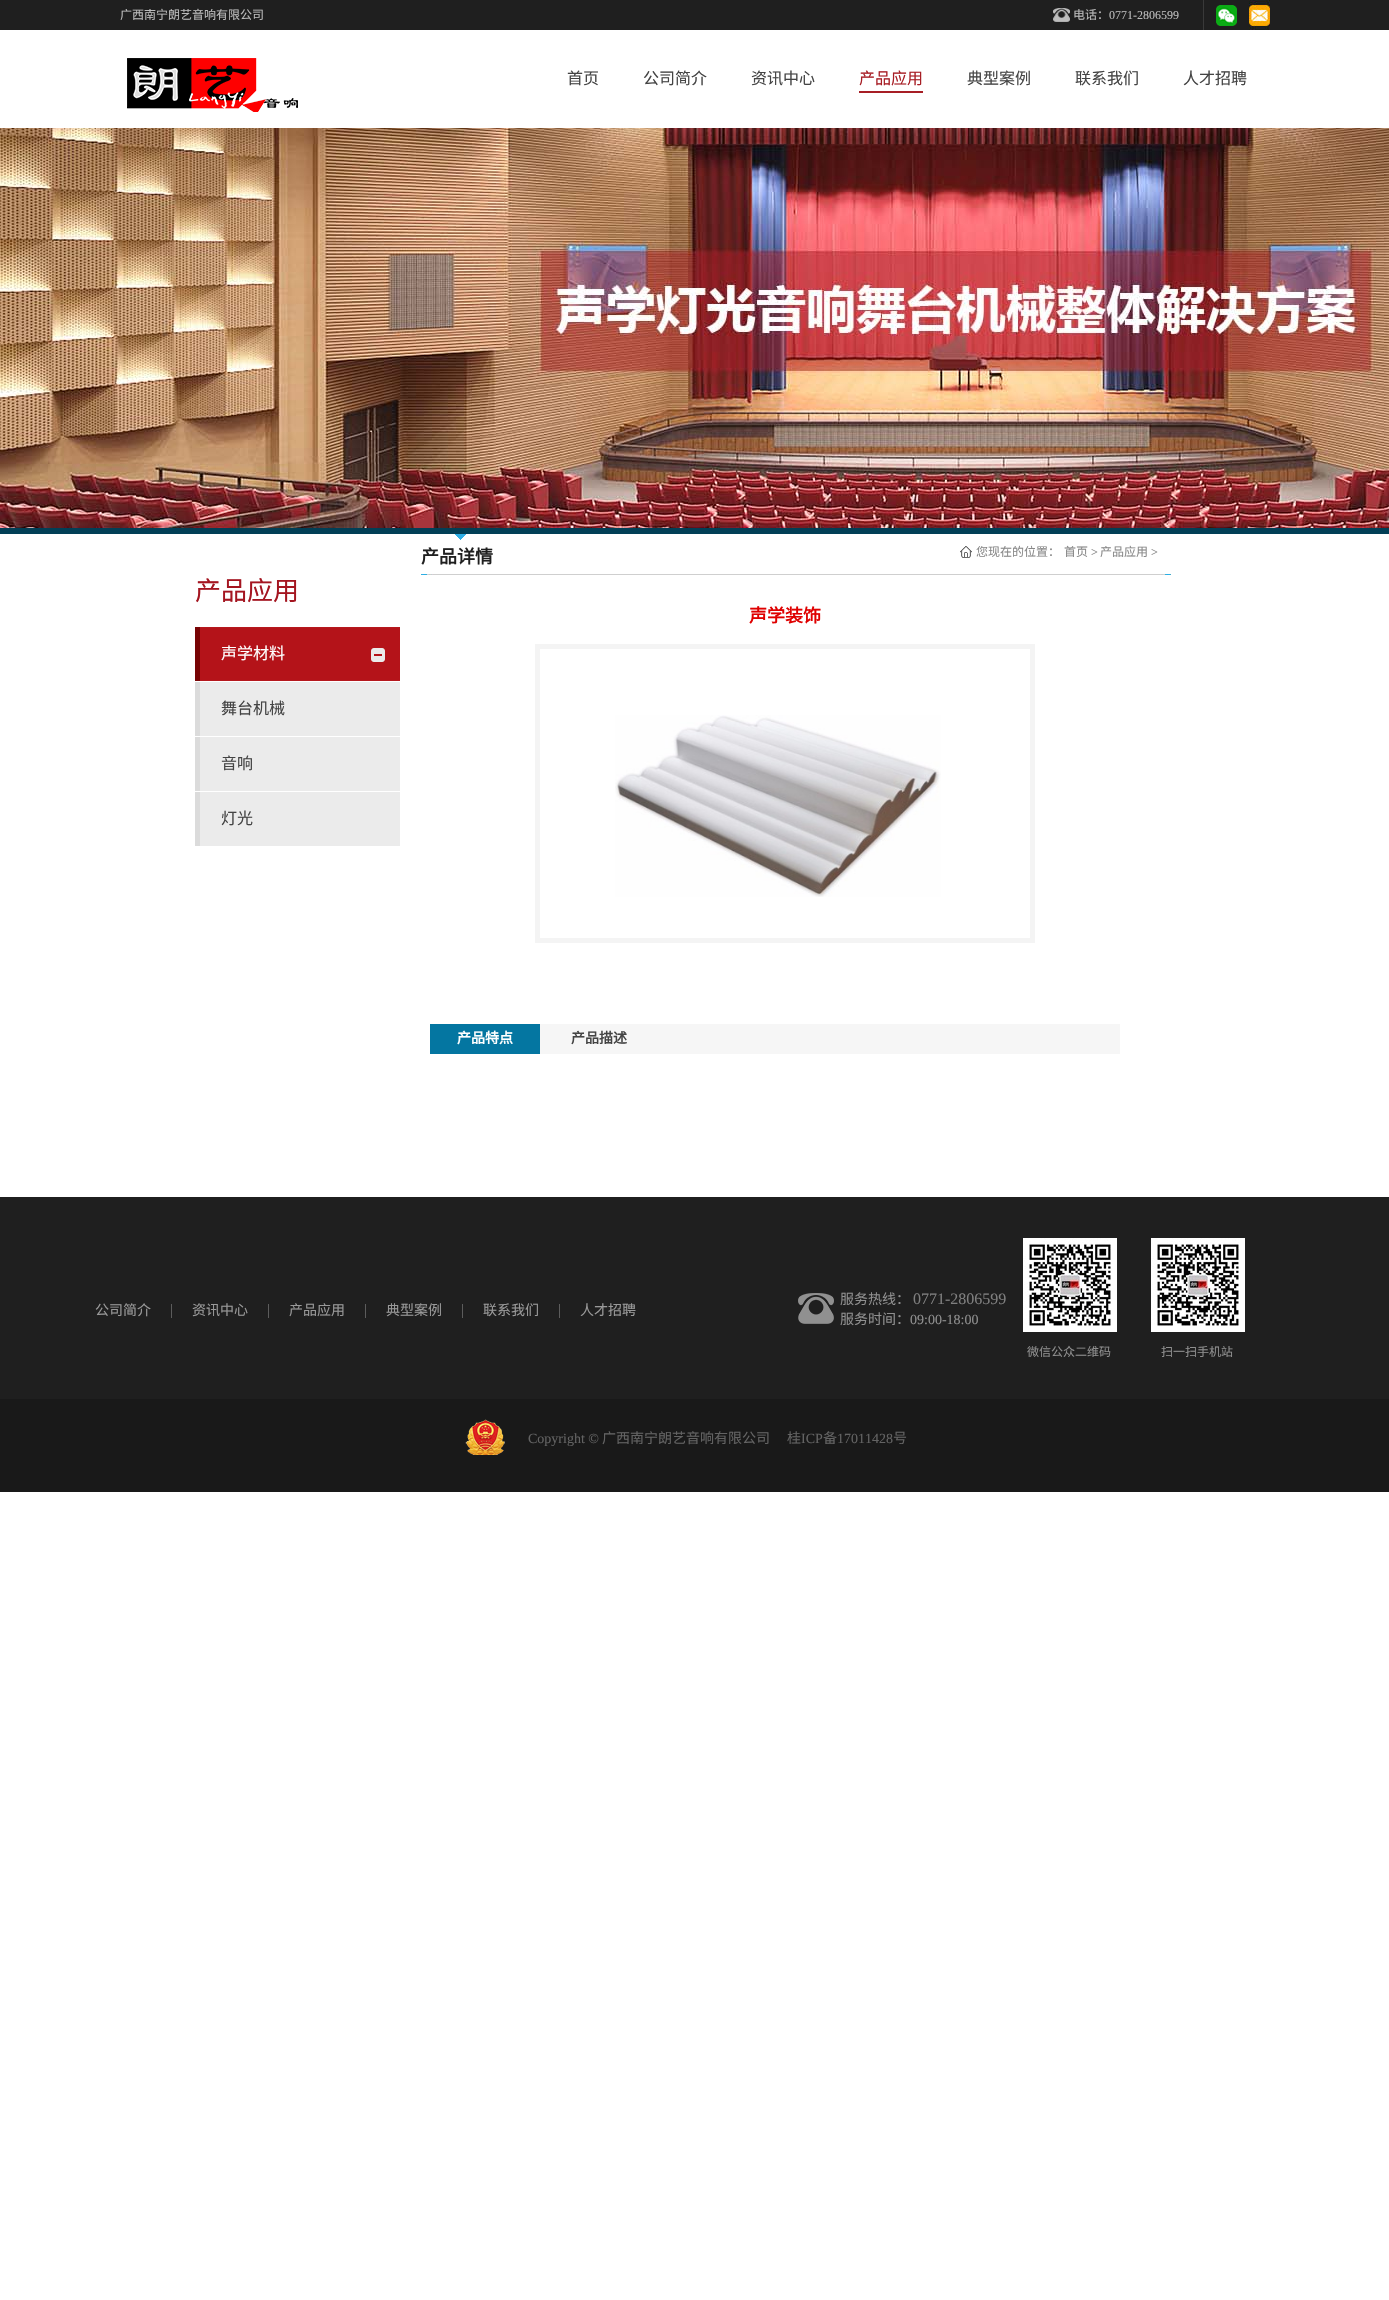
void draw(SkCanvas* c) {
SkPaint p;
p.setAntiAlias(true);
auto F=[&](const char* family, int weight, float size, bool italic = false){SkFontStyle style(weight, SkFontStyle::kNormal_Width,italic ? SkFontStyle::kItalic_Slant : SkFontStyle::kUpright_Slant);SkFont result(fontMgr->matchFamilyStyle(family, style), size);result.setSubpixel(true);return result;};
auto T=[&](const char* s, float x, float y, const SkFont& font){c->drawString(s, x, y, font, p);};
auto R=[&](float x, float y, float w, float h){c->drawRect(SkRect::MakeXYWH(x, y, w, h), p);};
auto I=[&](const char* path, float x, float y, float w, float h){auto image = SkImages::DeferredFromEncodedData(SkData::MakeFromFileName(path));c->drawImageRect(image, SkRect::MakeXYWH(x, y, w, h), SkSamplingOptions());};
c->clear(0xffffffff);
p.setColor(0xff1f1f1f);
R(0,0,1389,30);
auto f1 = F("Noto Sans CJK SC",400,12);
p.setColor(0xffbcbcbc);
T("广西南宁朗艺音响有限公司",120,19,f1);
I("1.png",1053,8,17,14);
p.setColor(0xff393939);
R(1203,0,1,30);
p.setColor(0xffbcbcbc);
T("电话：",1073,19,f1);
auto f2 = F("Liberation Serif",400,12);
T("0771-2806599",1109,19,f2);
I("2.png",1216,5,21,21);
I("3.png",1249,0,21,30);
I("4.png",127,58,171,54);
auto f3 = F("Noto Sans CJK SC",400,16);
p.setColor(0xff444444);
T("首页",567,84,f3);
T("公司简介",643,84,f3);
T("资讯中心",751,84,f3);
p.setColor(0xffa71e25);
T("产品应用",859,84,f3);
R(859,91,64,2);
p.setColor(0xff444444);
T("典型案例",967,84,f3);
T("联系我们",1075,84,f3);
T("人才招聘",1183,84,f3);
I("5.png",0,128,1389,400);
p.setColor(0xff023f56);
R(0,528,1389,6);
auto f4 = F("Noto Sans CJK SC",400,26);
p.setColor(0xffa41520);
T("产品应用",195,600,f4);
I("6.png",195,627,205,54);
p.setColor(0xffffffff);
T("声学材料",221,659,f3);
I("7.png",195,682,205,54);
p.setColor(0xff444444);
T("舞台机械",221,714,f3);
I("7.png",195,737,205,54);
T("音响",221,769,f3);
I("7.png",195,792,205,54);
T("灯光",221,824,f3);
I("8.png",455,534,11,6);
auto f5 = F("Noto Sans CJK SC",700,18);
p.setColor(0xff1f1f1f);
T("产品详情",421,563,f5);
I("9.png",960,546,12,12);
p.setColor(0xff888888);
T("您现在的位置：",976,556,f1);
T("首页",1064,556,f1);
T(">",1091,556,f2);
T("产品应用",1100,556,f1);
T(">",1151,556,f2);
I("10.png",421,574,750,1);
p.setColor(0xffdf0000);
T("声学装饰",749,622,f5);
p.setStroke(true);
p.setStrokeWidth(5);
p.setColor(0xfff4f4f4);
c->drawRect(SkRect::MakeXYWH(537.5,646.5,495,294),p);
I("11.png",615,715,326,182);
p.setStroke(false);
p.setColor(0xfff6f6f6);
R(540,1024,580,30);
p.setColor(0xff0476a1);
R(430,1024,110,30);
auto f6 = F("Noto Sans CJK SC",700,14);
p.setColor(0xffffffff);
T("产品特点",457,1043,f6);
p.setColor(0xff444444);
T("产品描述",571,1043,f6);
I("12.png",0,1197,1389,295);
p.setColor(0xff5c5c5c);
R(171,1304,1,14);
auto f7 = F("Noto Sans CJK SC",400,14);
p.setColor(0xff999999);
T("公司简介",95,1315,f7);
p.setColor(0xff5c5c5c);
R(268,1304,1,14);
p.setColor(0xff999999);
T("资讯中心",192,1315,f7);
p.setColor(0xff5c5c5c);
R(365,1304,1,14);
p.setColor(0xff999999);
T("产品应用",289,1315,f7);
p.setColor(0xff5c5c5c);
R(462,1304,1,14);
p.setColor(0xff999999);
T("典型案例",386,1315,f7);
p.setColor(0xff5c5c5c);
R(559,1304,1,14);
p.setColor(0xff999999);
T("联系我们",483,1315,f7);
T("人才招聘",580,1315,f7);
I("13.png",798,1293,36,31);
p.setColor(0xff8f8f8f);
T("服务热线：",840,1304,f7);
auto f8 = F("Liberation Serif",400,16);
p.setColor(0xff7f7f7f);
T("0771-2806599",913,1304,f8);
p.setColor(0xff8f8f8f);
T("服务时间：",840,1324,f7);
auto f9 = F("Liberation Serif",400,14);
T("09:00-18:00",910,1324,f9);
I("14.png",1023,1238,94,94);
T("微信公众二维码",1027,1356,f1);
I("14.png",1151,1238,94,94);
T("扫一扫手机站",1161,1356,f1);
I("15.png",465,1419,40,36);
p.setColor(0xff636363);
T("Copyright ©",528,1443,f9);
T("广西南宁朗艺音响有限公司",602,1443,f7);
T("桂",787,1443,f7);
T("ICP",801,1443,f9);
T("备",823,1443,f7);
T("17011428",837,1443,f9);
T("号",893,1443,f7);
}
